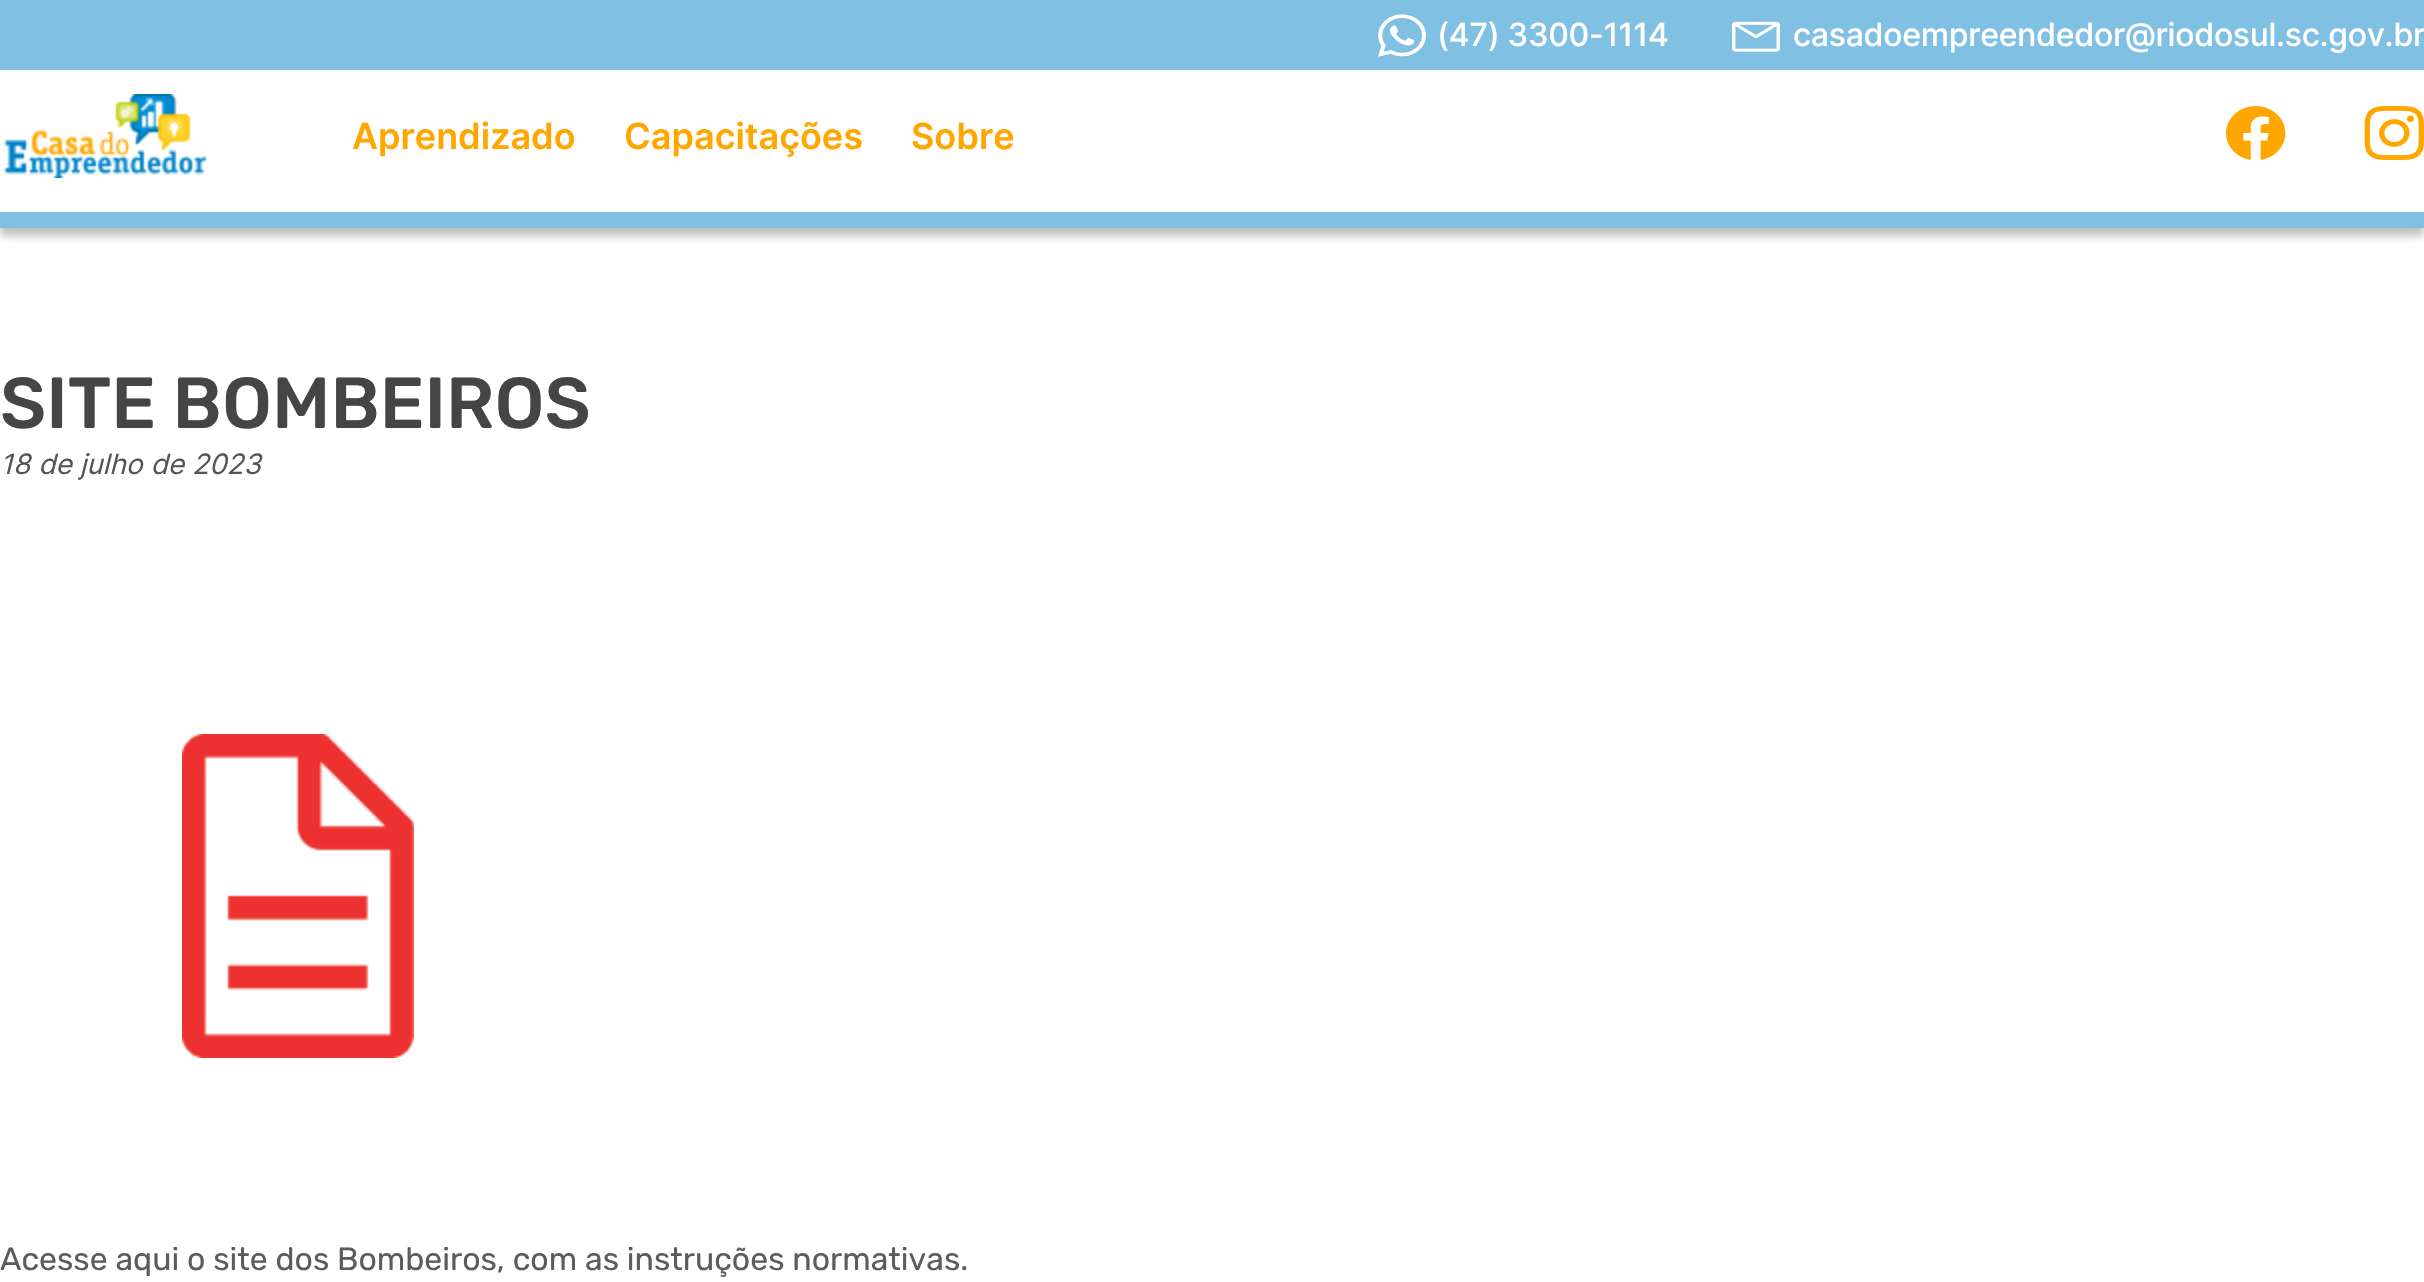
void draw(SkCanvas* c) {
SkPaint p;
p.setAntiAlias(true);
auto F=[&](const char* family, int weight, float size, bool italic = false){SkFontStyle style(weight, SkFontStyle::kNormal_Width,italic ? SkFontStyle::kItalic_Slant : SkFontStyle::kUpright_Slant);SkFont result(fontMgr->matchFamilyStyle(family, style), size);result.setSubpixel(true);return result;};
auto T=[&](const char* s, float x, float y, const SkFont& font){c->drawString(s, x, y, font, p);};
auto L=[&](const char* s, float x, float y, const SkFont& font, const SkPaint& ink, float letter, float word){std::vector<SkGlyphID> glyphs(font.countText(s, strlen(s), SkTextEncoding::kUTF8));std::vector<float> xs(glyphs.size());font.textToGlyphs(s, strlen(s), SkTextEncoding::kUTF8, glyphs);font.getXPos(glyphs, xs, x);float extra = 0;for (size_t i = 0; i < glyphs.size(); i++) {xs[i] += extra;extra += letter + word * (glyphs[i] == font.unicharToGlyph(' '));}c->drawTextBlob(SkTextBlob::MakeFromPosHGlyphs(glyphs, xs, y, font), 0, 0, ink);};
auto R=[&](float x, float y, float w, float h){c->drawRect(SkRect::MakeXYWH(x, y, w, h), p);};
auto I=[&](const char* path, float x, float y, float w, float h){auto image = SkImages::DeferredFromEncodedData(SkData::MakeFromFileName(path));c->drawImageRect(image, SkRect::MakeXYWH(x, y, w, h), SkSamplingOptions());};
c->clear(0xffffffff);
p.setColor(0xff80c1e3);
R(0,0,2424,70);
I("1.png",1378,14,48,43);
auto f1 = F("Inter",500,32);
p.setColor(0xffffffff);
L("(47) 3300-1114",1437,46,f1,p,-.3,0);
I("2.png",1732,21,48,31);
L("casadoempreendedor@riodosul.sc.gov.br",1793,46,f1,p,-.3,0);
I("3.png",3,94,204,84);
auto f2 = F("Inter",600,36);
p.setColor(0xffffa700);
T("Aprendizado",352,149,f2);
T("Capacitações",624,149,f2);
T("Sobre",911,149,f2);
I("4.png",2226,106,60,54);
I("5.png",2364,106,60,54);
p.setColor(0x40000000);
p.setMaskFilter(SkMaskFilter::MakeBlur(kNormal_SkBlurStyle, 4));
c->drawRect(SkRect::MakeXYWH(0,220,2424,16),p);
p.setMaskFilter(nullptr);
p.setColor(0xff80c1e3);
R(0,212,2424,16);
auto f3 = F("Rubik",500,72);
p.setColor(0xff454545);
T("SITE BOMBEIROS",0,428,f3);
auto f4 = F("Inter",400,28,true);
p.setColor(0xff585353);
T("18 de julho de 2023",0,474,f4);
I("6.png",182,734,232,324);
auto f5 = F("Rubik",400,32);
p.setColor(0xff5c5c5c);
T("Acesse aqui o site dos Bombeiros, com as instruções normativas.",0,1270,f5);
}
